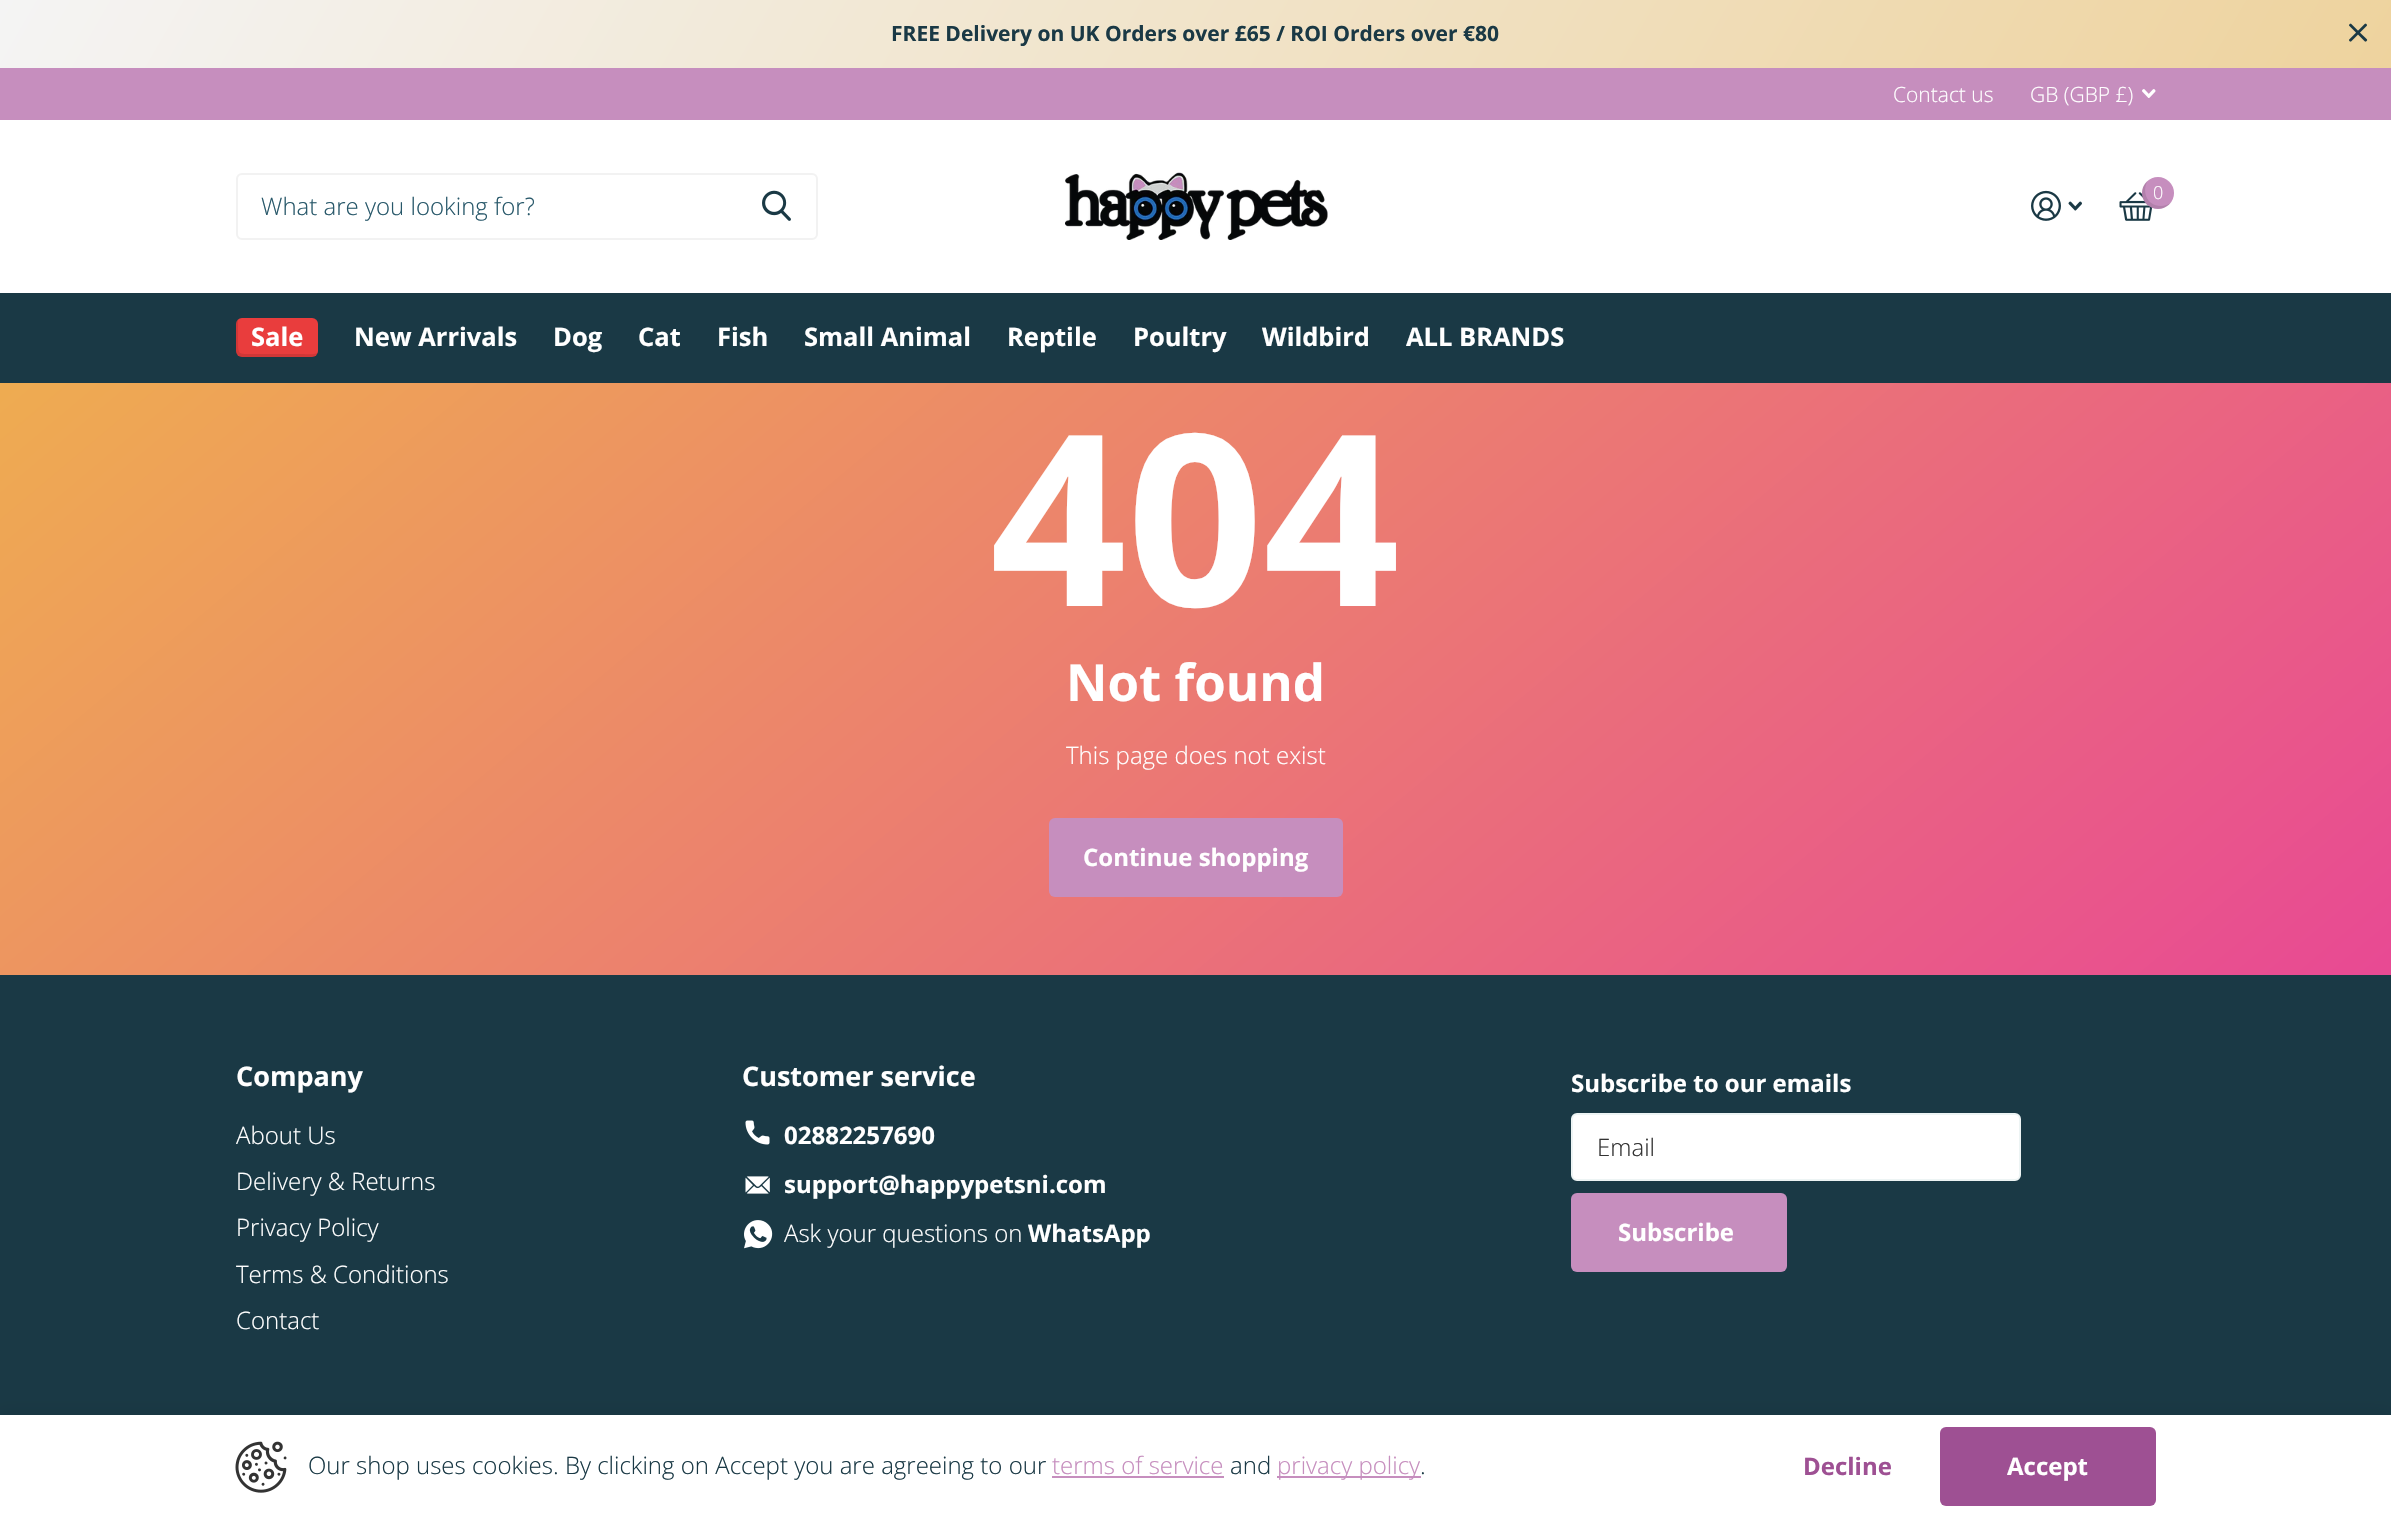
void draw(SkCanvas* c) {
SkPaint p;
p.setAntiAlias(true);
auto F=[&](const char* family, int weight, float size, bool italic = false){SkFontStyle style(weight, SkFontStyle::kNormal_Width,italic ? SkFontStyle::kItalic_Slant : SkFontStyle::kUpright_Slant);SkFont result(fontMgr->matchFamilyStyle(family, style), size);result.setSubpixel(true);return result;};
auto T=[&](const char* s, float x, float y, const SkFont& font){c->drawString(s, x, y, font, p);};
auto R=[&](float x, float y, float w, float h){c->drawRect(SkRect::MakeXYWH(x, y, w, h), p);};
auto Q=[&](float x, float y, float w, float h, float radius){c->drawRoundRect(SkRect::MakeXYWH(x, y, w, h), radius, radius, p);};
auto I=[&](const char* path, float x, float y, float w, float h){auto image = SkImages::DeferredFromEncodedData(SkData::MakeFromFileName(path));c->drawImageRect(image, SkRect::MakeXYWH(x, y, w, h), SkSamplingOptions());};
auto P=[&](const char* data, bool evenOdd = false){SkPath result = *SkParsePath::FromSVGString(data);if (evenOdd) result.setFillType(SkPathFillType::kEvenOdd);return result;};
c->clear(0xffffffff);
{
const SkColor colors[] = {0xfff4f4f4,0xffeed39e};
const float stops[] = {0,1};
const SkPoint ends[] = {{284,-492}, {2107,560}};
p.setShader(SkGradientShader::MakeLinear(ends, colors, stops, 2, SkTileMode::kClamp));
p.setAlpha(255);
}
R(0,0,2391,68);
auto f1 = F("Open Sans",700,21);
p.setShader(nullptr);
p.setColor(0xff1a3945);
T("FREE Delivery on UK Orders over £65 / ROI Orders over €80",891,41,f1);
I("1.png",2349,23,19,19);
p.setColor(0xffc68ebe);
R(0,68,2391,52);
auto f2 = F("Open Sans",300,21);
p.setColor(0xffffffff);
T("Contact us",1893,102,f2);
T("GB (GBP £)",2030,102,f2);
I("2.png",2142,89,14,9);
I("3.png",2031,190,30,31);
I("4.png",2068,201,14,10);
I("5.png",2119,192,34,29);
p.setColor(0xffc68ebe);
c->drawCircle(2158,193,16,p);
p.setColor(0x1a000000);
c->drawPath(P("M2171 202.5c-2.5 2-6 3.5-10 3.5c-15 0-19.5-16-13-25.5c-7.5 6-8 17-1.5 24c7 6.5 19 5.5 24.5-2z"),p);
auto f3 = F("Open Sans",300,18);
p.setColor(0xffffffff);
T("0",2153,199,f3);
p.setStroke(true);
p.setStrokeWidth(2);
p.setColor(0xfff2f2f2);
c->drawRoundRect(SkRect::MakeXYWH(237,174,580,65),5,5,p);
auto f4 = F("Open Sans",300,24);
p.setStroke(false);
p.setColor(0xff28586a);
T("What are you looking for?",261,215,f4);
I("6.png",762,190,29,31);
I("7.png",1065,172,263,68);
p.setColor(0xff1a3945);
R(0,293,2391,90);
p.setColor(0xffe93d3d);
Q(236,318,82,39,6);
p.setColor(0x1a000000);
c->drawPath(P("M238 319c-1 1-2 3-2 5v27c0 3 3 6 6 6h70c2 0 5-2 6-4c-4 2-14 1-15 1h-47c-18 0-18 2-18-15z"),p);
auto f5 = F("Open Sans",700,25.5);
p.setColor(0xffffffff);
T("Sale",251,346,f5);
T("New Arrivals",354,346,f5);
T("Dog",553,346,f5);
T("Cat",638,346,f5);
T("Fish",717,346,f5);
T("Small Animal",804,346,f5);
T("Reptile",1007,346,f5);
T("Poultry",1133,346,f5);
T("Wildbird",1262,346,f5);
T("ALL BRANDS",1406,346,f5);
{
const SkColor colors[] = {0xffe84a93,0xffefb34c};
const float stops[] = {.04,1};
const SkPoint ends[] = {{1908,1481}, {483,-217}};
p.setShader(SkGradientShader::MakeLinear(ends, colors, stops, 2, SkTileMode::kClamp));
p.setAlpha(255);
}
R(0,383,2391,592);
auto f6 = F("Open Sans",700,239);
p.setShader(nullptr);
p.setColor(0xffffffff);
T("404",990,606,f6);
auto f7 = F("Open Sans",700,51);
T("Not found",1066,701,f7);
T("This page does not exist",1066,764,f4);
p.setColor(0xffc68ebe);
Q(1049,818,294,79,6);
auto f8 = F("Open Sans",700,24);
p.setColor(0xffffffff);
T("Continue shopping",1083,866,f8);
p.setColor(0xff1a3945);
R(0,975,2391,440);
auto f9 = F("Open Sans",700,27);
p.setColor(0xffffffff);
T("Company",236,1086,f9);
T("About Us",236,1144,f4);
T("Delivery & Returns",236,1190,f4);
T("Privacy Policy",236,1236,f4);
T("Terms & Conditions",236,1283,f4);
T("Contact",236,1329,f4);
T("Customer service",742,1086,f9);
I("8.png",745,1120,25,25);
T("02882257690",784,1144,f8);
I("9.png",745,1176,25,18);
T("support@happypetsni.com",784,1193,f8);
I("10.png",744,1220,29,29);
T("Ask your questions on",784,1242,f4);
T("WhatsApp",1028,1242,f8);
T("Subscribe to our emails",1571,1092,f8);
c->drawRoundRect(SkRect::MakeXYWH(1572,1114,448,66),5,5,p);
p.setStroke(true);
p.setColor(0xffedf4f4);
c->drawRoundRect(SkRect::MakeXYWH(1572,1114,448,66),5,5,p);
p.setStroke(false);
p.setColor(0xff333333);
T("Email",1597,1156,f4);
p.setColor(0xffc68ebe);
Q(1571,1193,216,79,6);
p.setColor(0xffffffff);
T("Subscribe",1618,1241,f8);
p.setColor(0x0f000000);
p.setMaskFilter(SkMaskFilter::MakeBlur(kNormal_SkBlurStyle, 7.5));
c->drawRect(SkRect::MakeXYWH(0,1412,2391,103),p);
p.setMaskFilter(nullptr);
p.setColor(0xffffffff);
R(0,1415,2391,103);
I("11.png",235,1441,52,52);
p.setColor(0xff1a3945);
T("Our shop uses cookies. By clicking on Accept you are agreeing to our",308,1474,f4);
p.setColor(0xffc68ebe);
T("terms of service",1052,1474,f4);
R(1052,1476,172,2);
p.setColor(0xff1a3945);
T("and",1230,1474,f4);
p.setColor(0xffc68ebe);
R(1277,1476,144,2);
T("privacy policy",1277,1474,f4);
p.setColor(0xff1a3945);
T(".",1420,1474,f4);
p.setColor(0xff9e5093);
T("Decline",1803,1475,f8);
Q(1940,1427,216,79,6);
p.setColor(0xffffffff);
T("Accept",2007,1475,f8);
}
